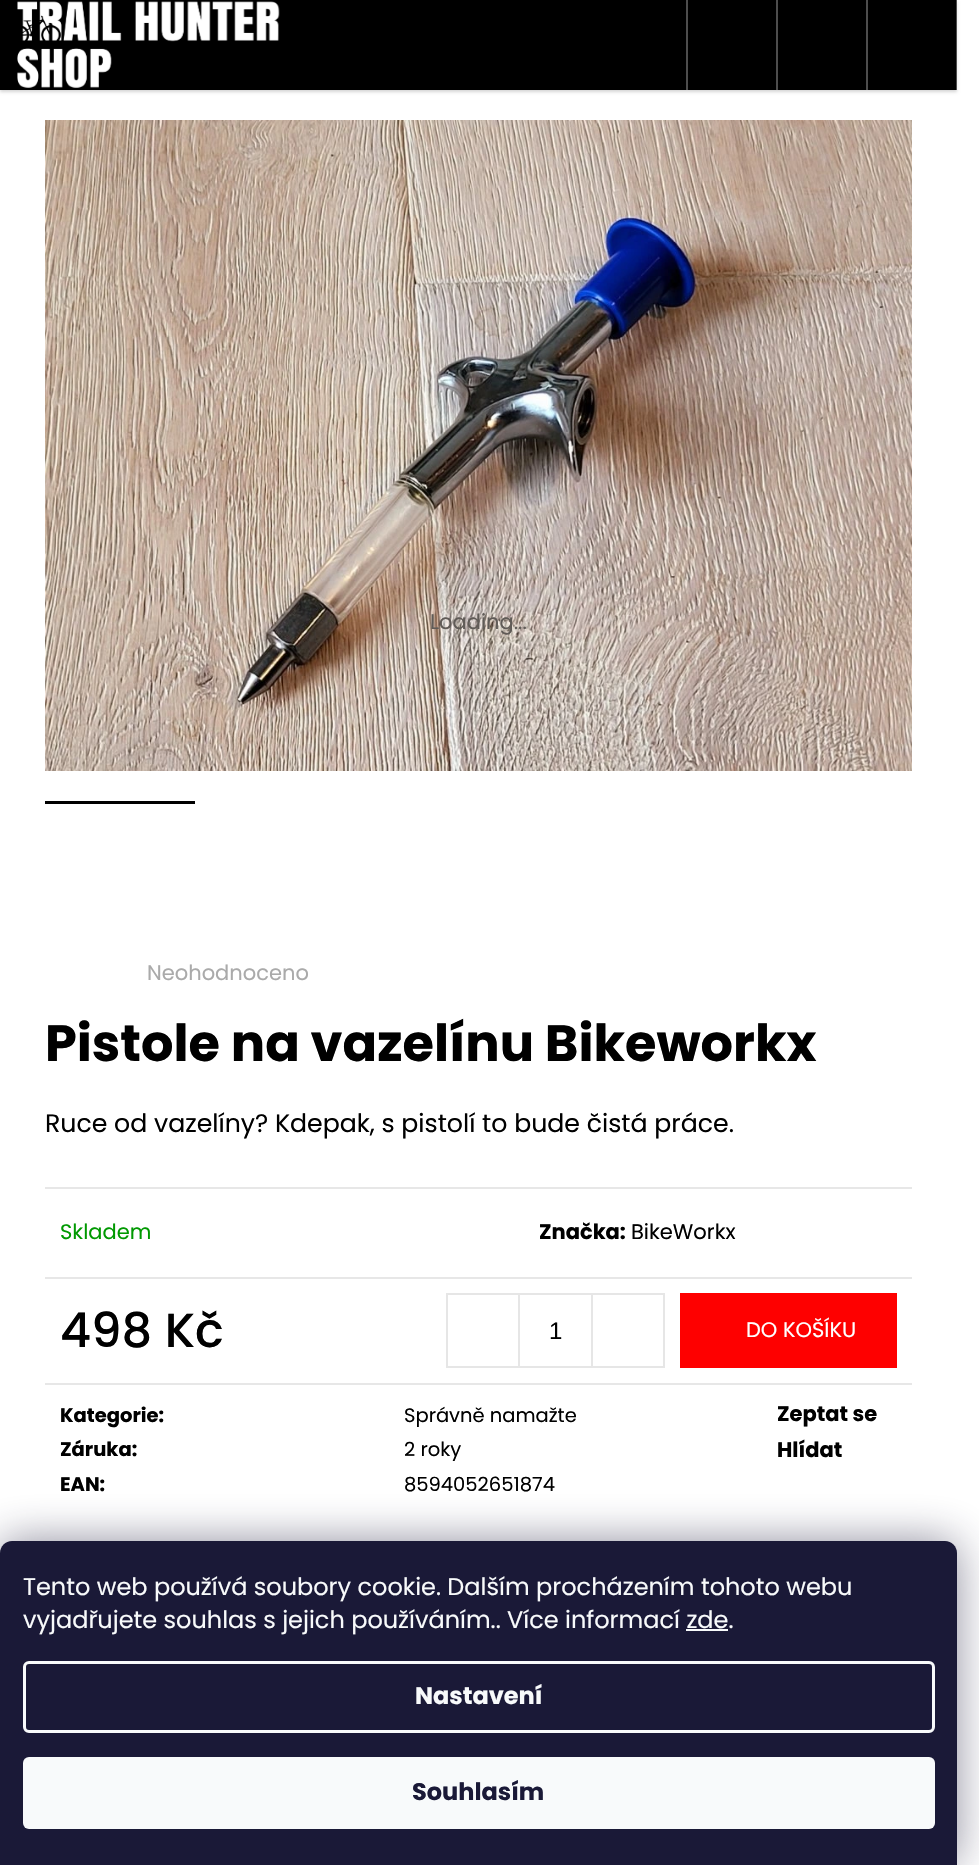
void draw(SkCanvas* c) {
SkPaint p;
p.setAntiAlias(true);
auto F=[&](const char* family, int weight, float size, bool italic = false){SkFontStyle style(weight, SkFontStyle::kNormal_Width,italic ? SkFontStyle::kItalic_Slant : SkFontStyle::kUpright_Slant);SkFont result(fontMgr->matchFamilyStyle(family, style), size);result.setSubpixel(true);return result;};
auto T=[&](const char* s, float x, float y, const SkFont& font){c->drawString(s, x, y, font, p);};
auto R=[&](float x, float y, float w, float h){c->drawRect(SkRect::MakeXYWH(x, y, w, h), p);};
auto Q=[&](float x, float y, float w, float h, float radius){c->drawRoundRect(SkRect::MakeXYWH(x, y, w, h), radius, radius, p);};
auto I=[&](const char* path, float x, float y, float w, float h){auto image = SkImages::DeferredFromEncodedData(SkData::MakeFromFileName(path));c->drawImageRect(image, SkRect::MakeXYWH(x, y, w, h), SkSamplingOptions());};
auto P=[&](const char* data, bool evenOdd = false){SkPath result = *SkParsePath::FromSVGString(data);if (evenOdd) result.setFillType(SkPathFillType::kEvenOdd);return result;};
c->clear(0xffffffff);
p.setColor(0x29000000);
p.setMaskFilter(SkMaskFilter::MakeBlur(kNormal_SkBlurStyle, 1.5));
c->drawRect(SkRect::MakeXYWH(0,2,957,90),p);
p.setMaskFilter(nullptr);
p.setColor(0xff000000);
R(0,0,957,90);
I("1.png",17,1,263,87);
p.setColor(0x4dffffff);
R(956,0,2,90);
p.setColor(0xff4d4d4d);
R(686,0,2,90);
R(776,0,2,90);
R(866,0,2,90);
I("2.png",45,120,867,651);
auto f1 = F("Poppins",400,21);
p.setColor(0xff605b57);
T("Loading...",430,629,f1);
p.setColor(0xff000000);
R(45,801,150,3);
p.setColor(0xffaaaaaa);
T("Neohodnoceno",147,980,f1);
auto f2 = F("Poppins",700,51);
p.setColor(0xff000000);
T("Pistole na vazelínu Bikeworkx",45,1061,f2);
auto f3 = F("Poppins",400,25.2);
T("Ruce od vazelíny? Kdepak, s pistolí to bude čistá práce.",45,1132,f3);
p.setColor(0xffe7e7e7);
R(45,1187,867,2);
R(45,1277,867,2);
p.setColor(0xff009901);
T("Skladem",60,1239,f1);
auto f4 = F("Poppins",700,21);
p.setColor(0xff000000);
T("Značka:",539,1239,f4);
T("BikeWorkx",631,1239,f1);
p.setColor(0xffe7e7e7);
R(45,1383,867,2);
auto f5 = F("Poppins",500,48);
p.setColor(0xff000000);
T("498 Kč",60,1347,f5);
p.setStroke(true);
p.setStrokeWidth(2);
p.setColor(0xffe6e6e6);
c->drawRect(SkRect::MakeXYWH(447,1294,217,73),p);
p.setStroke(false);
R(518,1295,2,72);
auto f6 = F("Liberation Sans",400,24);
p.setColor(0xff000000);
T("1",549,1339,f6);
p.setColor(0xffe6e6e6);
R(591,1295,2,72);
p.setColor(0xfffe0000);
R(680,1293,217,75);
p.setColor(0xffffffff);
T("DO KOŠÍKU",746,1337,f1);
auto f7 = F("Poppins",700,19.5);
p.setColor(0xff000000);
T("Kategorie:",60,1422,f7);
auto f8 = F("Poppins",400,19.5);
T("Správně namažte",404,1422,f8);
T("Záruka:",60,1456,f7);
T("2 roky",404,1456,f8);
T("EAN:",60,1491,f7);
T("8594052651874",404,1491,f8);
T("Zeptat se",777,1421,f4);
T("Hlídat",777,1457,f4);
p.setColor(0x801b1939);
p.setMaskFilter(SkMaskFilter::MakeBlur(kNormal_SkBlurStyle, 22.5));
c->drawRoundRect(SkRect::MakeXYWH(0,1541,957,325),12,12,p);
p.setMaskFilter(nullptr);
p.setColor(0xff1a1937);
c->drawPath(P("M12 1541h933c6.5 0 12 5.5 12 12v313h-957v-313c0-6.5 5.5-12 12-12z"),p);
auto f9 = F("Poppins",400,24);
p.setColor(0xfff8fafb);
T("Tento web používá soubory cookie. Dalším procházením tohoto webu",23,1595,f9);
T("vyjadřujete souhlas s jejich používáním.. Více informací zde.",23,1628,f9);
R(686,1629,42,2);
p.setStroke(true);
p.setStrokeWidth(3);
c->drawRoundRect(SkRect::MakeXYWH(24.5,1662.5,909,69),4.5,4.5,p);
auto f10 = F("Poppins",700,24);
p.setStroke(false);
T("Nastavení",415,1704,f10);
Q(23,1757,912,72,6);
p.setColor(0xff1a1937);
T("Souhlasím",412,1800,f10);
}
